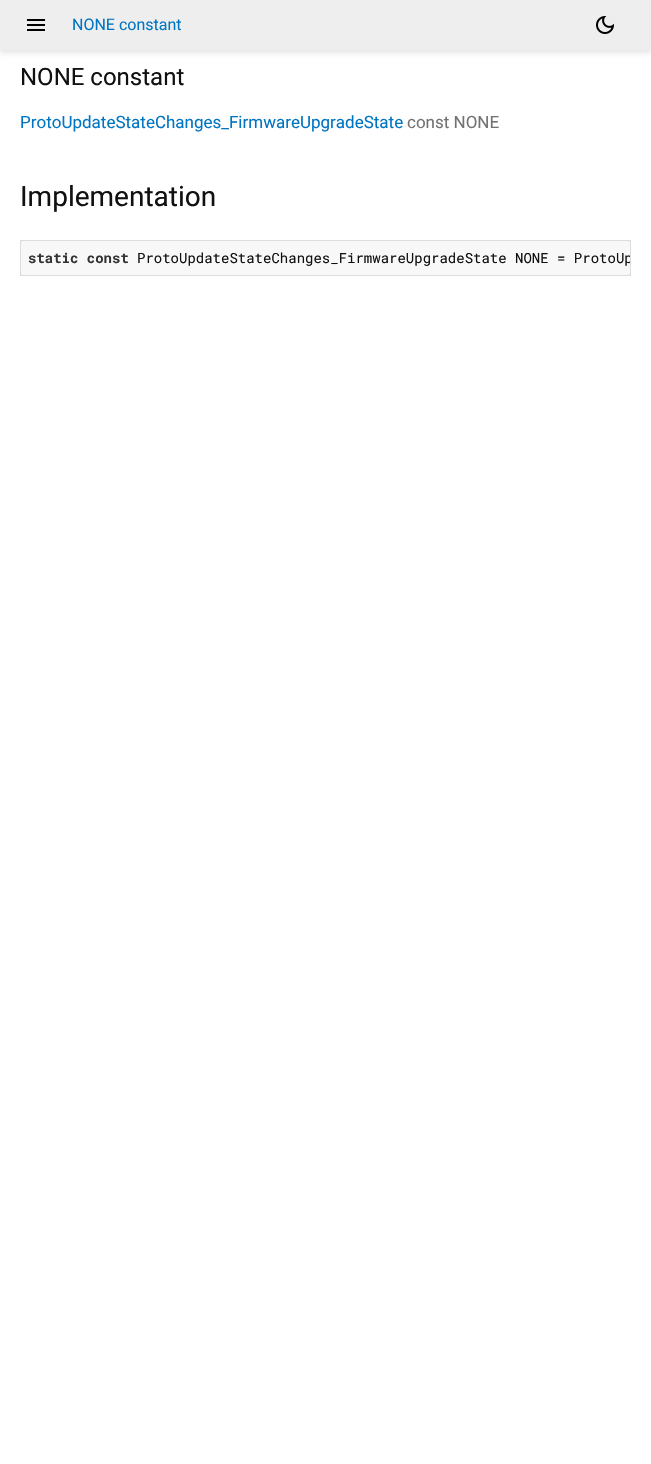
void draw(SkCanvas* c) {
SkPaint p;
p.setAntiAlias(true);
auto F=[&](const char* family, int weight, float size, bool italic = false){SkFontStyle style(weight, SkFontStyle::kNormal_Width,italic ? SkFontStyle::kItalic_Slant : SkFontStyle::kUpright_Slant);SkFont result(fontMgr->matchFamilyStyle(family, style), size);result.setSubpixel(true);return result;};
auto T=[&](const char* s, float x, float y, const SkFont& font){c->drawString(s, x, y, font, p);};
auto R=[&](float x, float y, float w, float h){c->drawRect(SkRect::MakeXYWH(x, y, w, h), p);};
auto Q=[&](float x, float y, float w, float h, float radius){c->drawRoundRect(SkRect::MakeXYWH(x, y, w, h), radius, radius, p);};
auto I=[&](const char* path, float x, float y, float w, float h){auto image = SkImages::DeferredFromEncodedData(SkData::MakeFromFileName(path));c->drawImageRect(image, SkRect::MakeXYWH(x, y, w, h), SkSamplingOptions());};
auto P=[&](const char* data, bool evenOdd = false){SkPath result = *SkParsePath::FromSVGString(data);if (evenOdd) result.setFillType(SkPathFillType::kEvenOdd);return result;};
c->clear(0xffffffff);
p.setColor(0x1a000000);
p.setMaskFilter(SkMaskFilter::MakeBlur(kNormal_SkBlurStyle, 2.5));
c->drawRect(SkRect::MakeXYWH(0,3,651,50),p);
p.setMaskFilter(nullptr);
p.setColor(0xffeeeeee);
R(0,0,651,50);
I("1.png",27,19,18,12);
auto f1 = F("Roboto",400,16);
p.setColor(0xff0175c2);
T("NONE constant",72,30,f1);
I("2.png",596,16,18,18);
auto f2 = F("Roboto",400,24);
p.setColor(0xff111111);
T("NONE constant",20,85,f2);
auto f3 = F("Roboto",400,17);
p.setColor(0xff0175c2);
T("ProtoUpdateStateChanges_FirmwareUpgradeState",20,128,f3);
p.setColor(0xff727272);
T("const NONE",407,128,f3);
auto f4 = F("Roboto",400,28);
p.setColor(0xff111111);
T("Implementation",20,206,f4);
p.setColor(0xffeeeeee);
c->drawRect(SkRect::MakeXYWH(20.5,240.5,610,35),p);
p.setStroke(true);
p.setStrokeWidth(1);
p.setColor(0xffdddddd);
c->drawRect(SkRect::MakeXYWH(20.5,240.5,610,35),p);
p.setStroke(false);
p.setColor(0xfff8f8f8);
Q(21,241,609,34,3);
auto f5 = F("Roboto Mono",700,14);
p.setColor(0xff333333);
T("static const",28,263,f5);
c->save();
c->clipPath(P("M24 241h603c1.5 0 3 1.5 3 3v28c0 1.5-1.5 3-3 3h-603c-1.5 0-3-1.5-3-3v-28c0-1.5 1.5-3 3-3z"),true);
auto f6 = F("Roboto Mono",400,14);
p.setColor(0xff111111);
T("ProtoUpdateStateChanges_FirmwareUpgradeState NONE = ProtoUp",137,263,f6);
c->restore();
}
